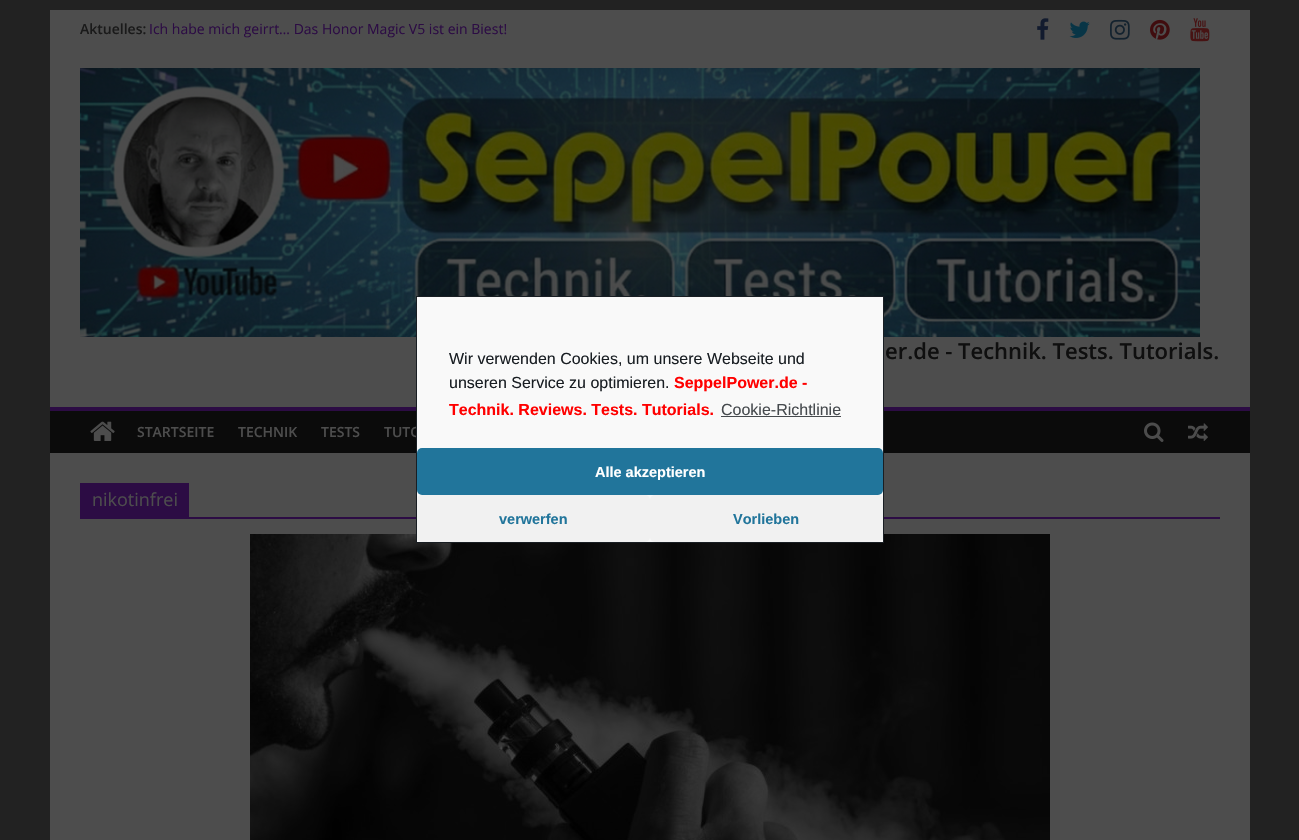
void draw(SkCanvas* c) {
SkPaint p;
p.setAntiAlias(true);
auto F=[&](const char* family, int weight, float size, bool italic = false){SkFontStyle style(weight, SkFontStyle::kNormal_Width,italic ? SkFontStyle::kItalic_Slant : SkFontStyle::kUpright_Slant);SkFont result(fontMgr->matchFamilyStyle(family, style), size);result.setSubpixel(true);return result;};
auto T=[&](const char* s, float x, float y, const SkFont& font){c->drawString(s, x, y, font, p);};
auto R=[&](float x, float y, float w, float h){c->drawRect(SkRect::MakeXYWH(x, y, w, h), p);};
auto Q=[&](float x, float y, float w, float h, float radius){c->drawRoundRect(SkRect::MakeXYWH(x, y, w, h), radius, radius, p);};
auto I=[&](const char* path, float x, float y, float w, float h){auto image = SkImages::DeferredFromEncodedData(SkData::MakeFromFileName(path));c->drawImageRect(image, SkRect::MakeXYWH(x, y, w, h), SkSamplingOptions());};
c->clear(0xff222222);
p.setColor(0xff4d4d4d);
R(50,10,1200,397);
auto f1 = F("Open Sans",600,14);
p.setColor(0xff1a1a1a);
T("Aktuelles:",80,34,f1);
auto f2 = F("Open Sans",400,14);
p.setColor(0xff2c0c44);
T("Ich habe mich geirrt… Das Honor Magic V5 ist ein Biest!",149,34,f2);
I("1.png",1037,18,12,22);
I("2.png",1069,21,21,17);
I("3.png",1110,19,20,21);
I("4.png",1150,19,20,21);
I("5.png",1190,18,20,24);
I("6.png",80,68,1120,269);
auto f3 = F("Open Sans",600,22);
p.setColor(0xff0f0f0f);
T("er.de - Technik. Tests. Tutorials.",885,359,f3);
p.setColor(0xff0b0b0b);
R(50,411,1200,42);
p.setColor(0xff2c0c44);
R(50,407,1200,4);
I("7.png",90,421,25,20);
p.setColor(0xff4d4d4d);
T("STARTSEITE",137,437,f1);
T("TECHNIK",238,437,f1);
T("TESTS",321,437,f1);
T("TUTO",384,437,f1);
I("8.png",1144,422,20,20);
I("9.png",1188,423,20,18);
R(50,453,1200,387);
p.setColor(0xff2c0c44);
R(80,517,1140,2);
R(80,483,109,34);
auto f4 = F("Open Sans",400,18);
p.setColor(0xff4d4d4d);
T("nikotinfrei",92,506,f4);
I("10.png",250,534,800,306);
p.setColor(0xfff9f9f9);
c->drawRect(SkRect::MakeXYWH(416.5,296.5,467,246),p);
p.setStroke(true);
p.setStrokeWidth(1);
p.setColor(0xff191e23);
c->drawRect(SkRect::MakeXYWH(416.5,296.5,467,246),p);
auto f5 = F("Liberation Sans",400,16);
p.setStroke(false);
T("Wir verwenden Cookies, um unsere Webseite und",449,364,f5);
T("unseren Service zu optimieren.",449,388,f5);
auto f6 = F("Liberation Sans",700,16);
p.setColor(0xffff0000);
T("SeppelPower.de -",674,388,f6);
T("Technik. Reviews. Tests. Tutorials.",449,415,f6);
p.setColor(0xff464a4e);
T("Cookie-Richtlinie",721,415,f5);
R(721,416,120,1);
p.setColor(0xff21759b);
Q(417,448,466,47,5);
auto f7 = F("Liberation Sans",700,14.5);
p.setColor(0xffffffff);
T("Alle akzeptieren",595,477,f7);
p.setColor(0xfff1f1f1);
Q(417,495,233,47,5);
p.setColor(0xff21759b);
T("verwerfen",499,524,f7);
p.setColor(0xfff1f1f1);
Q(650,495,233,47,5);
p.setColor(0xff21759b);
T("Vorlieben",733,524,f7);
}
